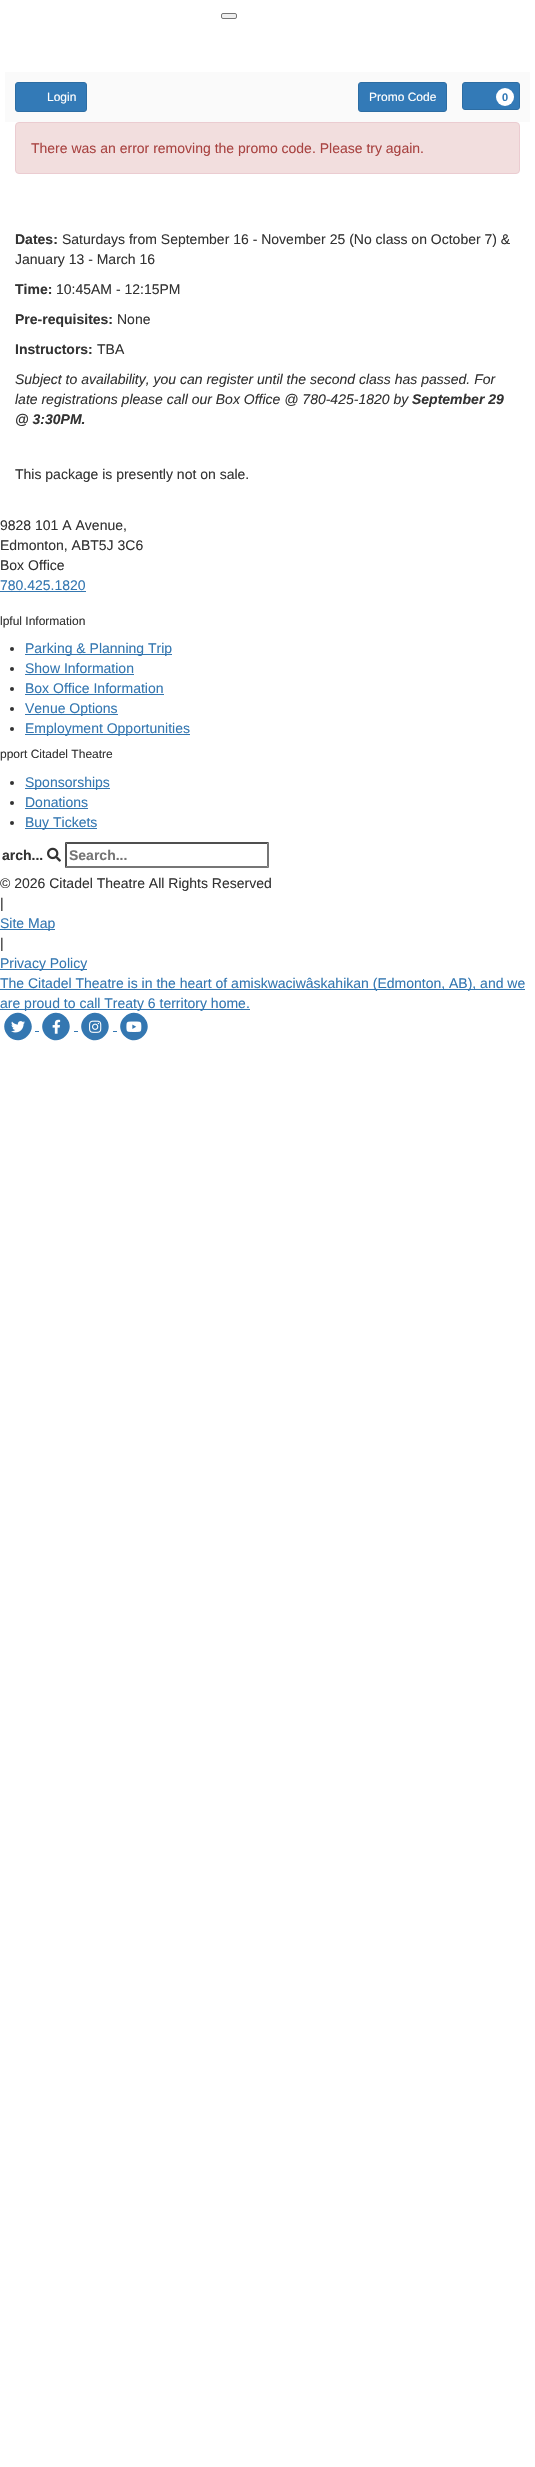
void draw(SkCanvas* c) {
SkPaint p;
p.setAntiAlias(true);
auto F=[&](const char* family, int weight, float size, bool italic = false){SkFontStyle style(weight, SkFontStyle::kNormal_Width,italic ? SkFontStyle::kItalic_Slant : SkFontStyle::kUpright_Slant);SkFont result(fontMgr->matchFamilyStyle(family, style), size);result.setSubpixel(true);return result;};
auto T=[&](const char* s, float x, float y, const SkFont& font){c->drawString(s, x, y, font, p);};
auto R=[&](float x, float y, float w, float h){c->drawRect(SkRect::MakeXYWH(x, y, w, h), p);};
auto I=[&](const char* path, float x, float y, float w, float h){auto image = SkImages::DeferredFromEncodedData(SkData::MakeFromFileName(path));c->drawImageRect(image, SkRect::MakeXYWH(x, y, w, h), SkSamplingOptions());};
auto P=[&](const char* data, bool evenOdd = false){SkPath result = *SkParsePath::FromSVGString(data);if (evenOdd) result.setFillType(SkPathFillType::kEvenOdd);return result;};
c->clear(0xffffffff);
p.setColor(0xffefefef);
c->drawRoundRect(SkRect::MakeXYWH(221.5,13.5,15,5),1.5,1.5,p);
p.setStroke(true);
p.setStrokeWidth(1);
p.setColor(0xff767676);
c->drawRoundRect(SkRect::MakeXYWH(221.5,13.5,15,5),1.5,1.5,p);
p.setStroke(false);
p.setColor(0xfffafafa);
R(5,72,525,50);
p.setColor(0xff337ab7);
c->drawRoundRect(SkRect::MakeXYWH(15.5,82.5,71,29),2.5,2.5,p);
p.setStroke(true);
p.setColor(0xff2d6da3);
c->drawRoundRect(SkRect::MakeXYWH(15.5,82.5,71,29),2.5,2.5,p);
auto f1 = F("Liberation Sans",400,12);
p.setStroke(false);
p.setColor(0xffffffff);
T("Login",47,101,f1);
p.setColor(0xff337ab7);
c->drawRoundRect(SkRect::MakeXYWH(358.5,82.5,88,29),2.5,2.5,p);
p.setStroke(true);
p.setColor(0xff2d6da3);
c->drawRoundRect(SkRect::MakeXYWH(358.5,82.5,88,29),2.5,2.5,p);
p.setStroke(false);
p.setColor(0xffffffff);
T("Promo Code",369,101,f1);
p.setColor(0xff337ab7);
c->drawRoundRect(SkRect::MakeXYWH(462.5,82.5,57,27),2.5,2.5,p);
p.setStroke(true);
p.setColor(0xff2d6da3);
c->drawRoundRect(SkRect::MakeXYWH(462.5,82.5,57,27),2.5,2.5,p);
p.setStroke(false);
p.setColor(0xffffffff);
c->drawCircle(505,97,9,p);
auto f2 = F("Liberation Sans",700,11);
p.setColor(0xff337ab7);
T("0",502,101,f2);
p.setColor(0xfff2dede);
c->drawRoundRect(SkRect::MakeXYWH(15.5,122.5,504,51),3.5,3.5,p);
p.setStroke(true);
p.setColor(0xffebccd1);
c->drawRoundRect(SkRect::MakeXYWH(15.5,122.5,504,51),3.5,3.5,p);
auto f3 = F("Liberation Sans",400,14);
p.setStroke(false);
p.setColor(0xffa94442);
T("There was an error removing the promo code. Please try again.",31,153,f3);
auto f4 = F("Liberation Sans",700,14);
p.setColor(0xff333333);
T("Dates:",15,244,f4);
T("Saturdays from September 16 - November 25 (No class on October 7) &",62,244,f3);
T("January 13 - March 16",15,264,f3);
T("Time:",15,294,f4);
T("10:45AM - 12:15PM",56,294,f3);
T("Pre-requisites:",15,324,f4);
T("None",117,324,f3);
T("Instructors:",15,354,f4);
T("TBA",97,354,f3);
auto f5 = F("Liberation Sans",400,14,true);
T("Subject to availability, you can register until the second class has passed. For",15,384,f5);
T("late registrations please call our Box Office @ 780-425-1820 by",15,404,f5);
auto f6 = F("Liberation Sans",700,14,true);
T("September 29",412,404,f6);
T("@ 3:30PM.",15,424,f6);
T("This package is presently not on sale.",15,479,f3);
T("9828 101 A Avenue,",0,530,f3);
T("Edmonton, ABT5J 3C6",0,550,f3);
T("Box Office",0,570,f3);
p.setColor(0xff3477b1);
T("780.425.1820",0,590,f3);
R(0,591,86,1);
p.setColor(0xff333333);
T("lpful Information",0,625,f1);
c->drawCircle(12,649,2,p);
p.setColor(0xff3477b1);
R(25,654,147,1);
T("Parking & Planning Trip",25,653,f3);
p.setColor(0xff333333);
c->drawCircle(12,669,2,p);
p.setColor(0xff3477b1);
T("Show Information",25,673,f3);
R(25,674,109,1);
p.setColor(0xff333333);
c->drawCircle(12,689,2,p);
p.setColor(0xff3477b1);
T("Box Office Information",25,693,f3);
R(25,694,139,1);
p.setColor(0xff333333);
c->drawCircle(12,709,2,p);
p.setColor(0xff3477b1);
R(25,714,93,1);
T("Venue Options",25,713,f3);
p.setColor(0xff333333);
c->drawCircle(12,729,2,p);
p.setColor(0xff3477b1);
R(25,734,165,1);
T("Employment Opportunities",25,733,f3);
p.setColor(0xff333333);
T("pport Citadel Theatre",0,758,f1);
c->drawCircle(12,783,2,p);
p.setColor(0xff3477b1);
R(25,788,85,1);
T("Sponsorships",25,787,f3);
p.setColor(0xff333333);
c->drawCircle(12,803,2,p);
p.setColor(0xff3477b1);
T("Donations",25,807,f3);
R(25,808,63,1);
p.setColor(0xff333333);
c->drawCircle(12,823,2,p);
p.setColor(0xff3477b1);
R(25,828,72,1);
T("Buy Tickets",25,827,f3);
p.setColor(0xff333333);
T("arch...",2,860,f4);
I("1.png",47,847,14,15);
p.setColor(0xff4f4f4f);
c->drawPath(P("M65 842h204l-2 2h-200z"),p);
p.setColor(0xff767676);
c->drawPath(P("M269 842v26l-2-2v-22z"),p);
c->drawPath(P("M269 868h-204l2-2h200z"),p);
p.setColor(0xff4f4f4f);
c->drawPath(P("M65 868v-26l2 2v22z"),p);
p.setColor(0xff757575);
T("Search...",69,860,f4);
p.setColor(0xff333333);
T("© 2026 Citadel Theatre All Rights Reserved",0,888,f3);
T("|",0,908,f3);
p.setColor(0xff3477b1);
R(0,929,55,1);
T("Site Map",0,928,f3);
p.setColor(0xff333333);
T("|",0,948,f3);
p.setColor(0xff3477b1);
R(0,969,87,1);
T("Privacy Policy",0,968,f3);
R(0,989,525,1);
T("The Citadel Theatre is in the heart of amiskwaciwâskahikan (Edmonton, AB), and we",0,988,f3);
R(0,1009,250,1);
T("are proud to call Treaty 6 territory home.",0,1008,f3);
c->drawPath(P("M8.5 1017c12.5-13 32 6.5 19 19c-12.5 13-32-6.5-19-19z"),p);
I("2.png",11,1021,14,12);
R(35,1031,4,1);
c->drawPath(P("M46.5 1017c12.5-13 32 6.5 19 19c-12.5 13-32-6.5-19-19z"),p);
I("3.png",52,1019,9,15);
R(74,1031,4,1);
c->drawPath(P("M85.5 1017c12.5-13 32 6.5 19 19c-12.5 13-32-6.5-19-19z"),p);
I("4.png",89,1020,13,13);
R(113,1031,4,1);
c->drawPath(P("M124.5 1017c12.5-13 32 6.5 19 19c-12.5 13-32-6.5-19-19z"),p);
I("5.png",126,1021,16,11);
}
